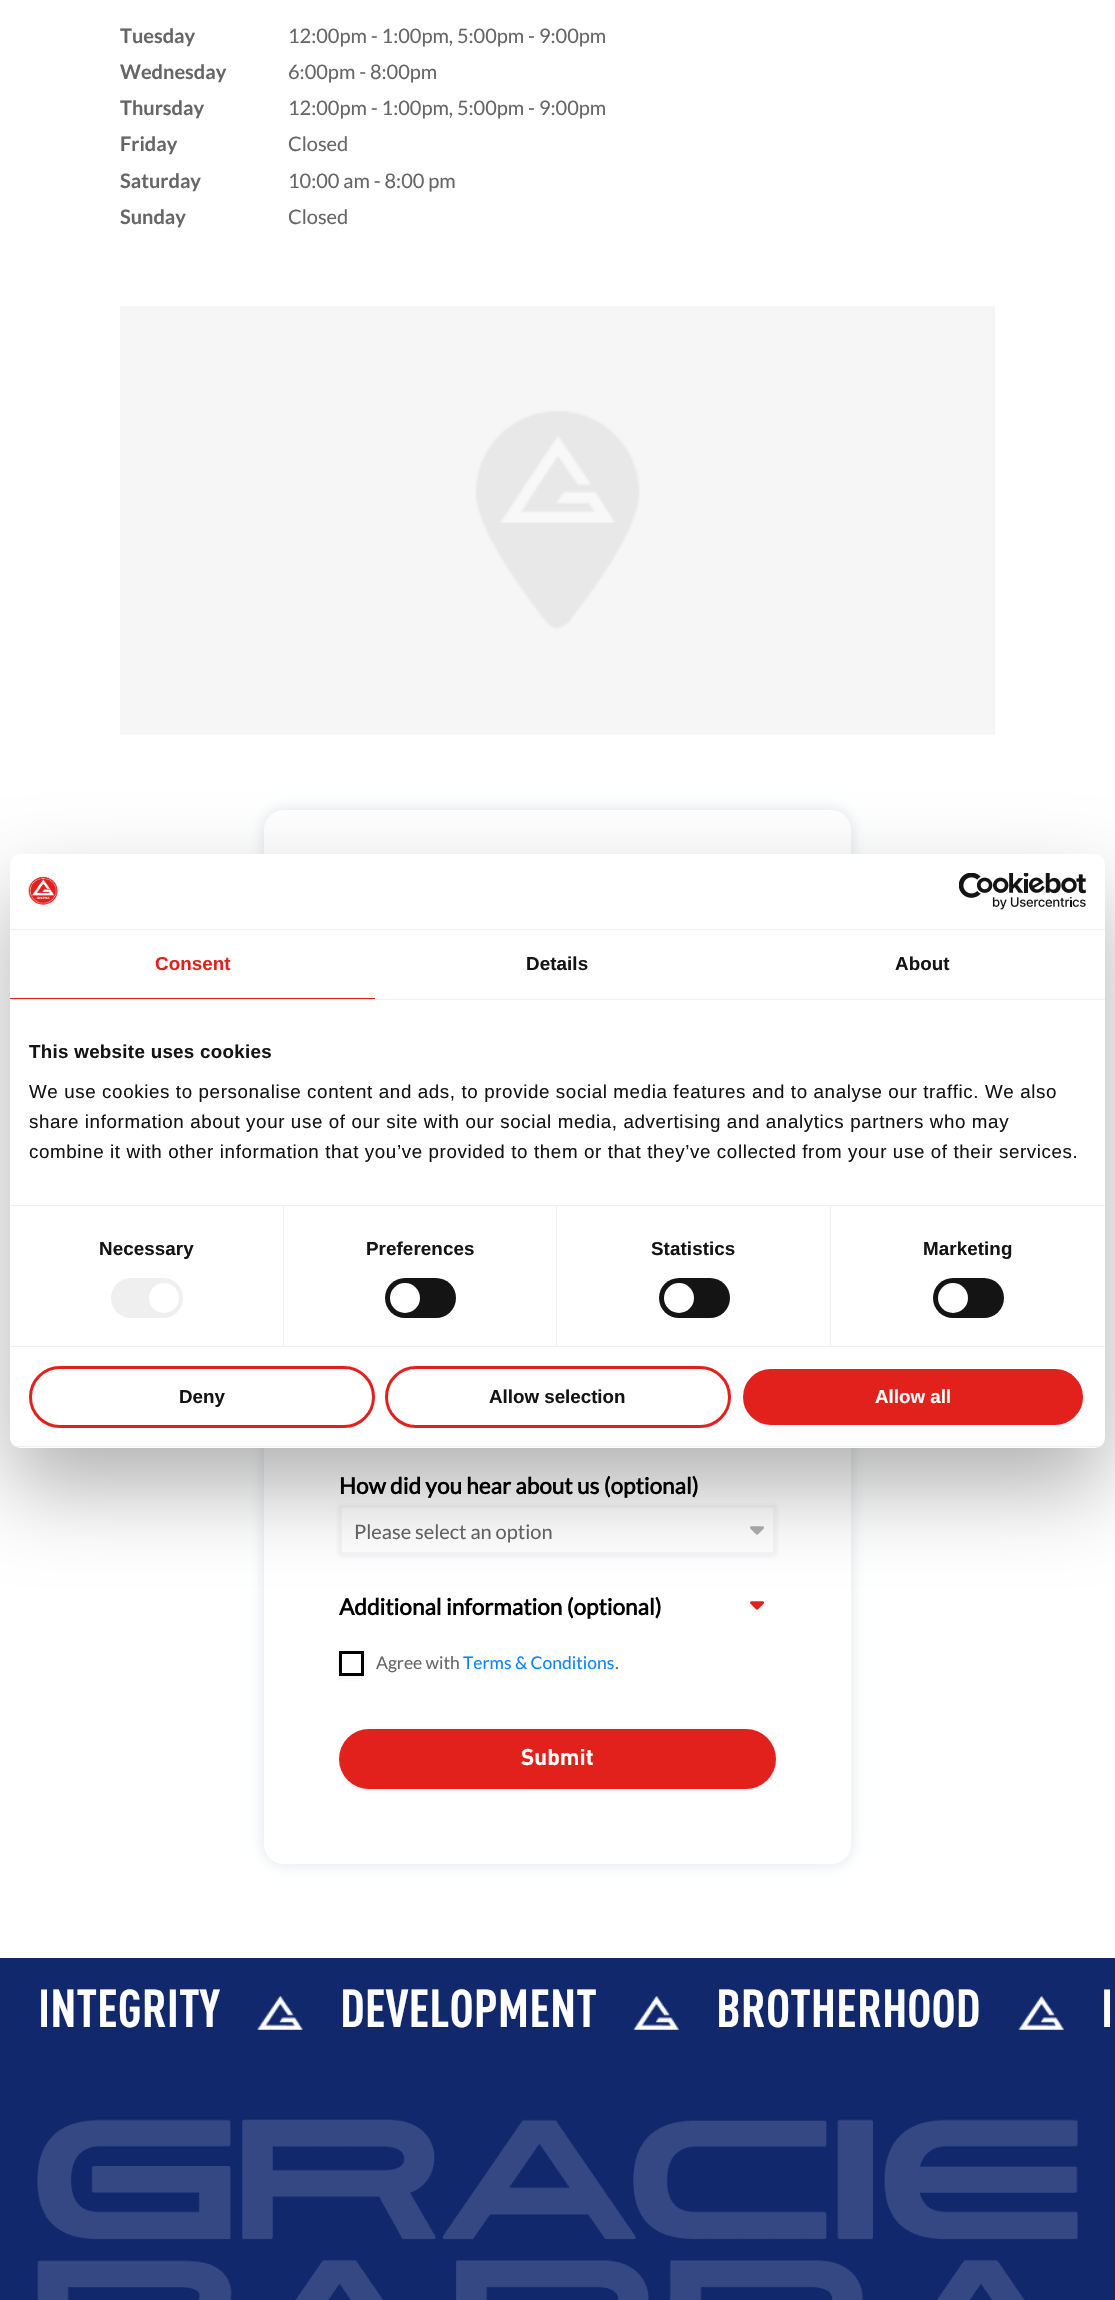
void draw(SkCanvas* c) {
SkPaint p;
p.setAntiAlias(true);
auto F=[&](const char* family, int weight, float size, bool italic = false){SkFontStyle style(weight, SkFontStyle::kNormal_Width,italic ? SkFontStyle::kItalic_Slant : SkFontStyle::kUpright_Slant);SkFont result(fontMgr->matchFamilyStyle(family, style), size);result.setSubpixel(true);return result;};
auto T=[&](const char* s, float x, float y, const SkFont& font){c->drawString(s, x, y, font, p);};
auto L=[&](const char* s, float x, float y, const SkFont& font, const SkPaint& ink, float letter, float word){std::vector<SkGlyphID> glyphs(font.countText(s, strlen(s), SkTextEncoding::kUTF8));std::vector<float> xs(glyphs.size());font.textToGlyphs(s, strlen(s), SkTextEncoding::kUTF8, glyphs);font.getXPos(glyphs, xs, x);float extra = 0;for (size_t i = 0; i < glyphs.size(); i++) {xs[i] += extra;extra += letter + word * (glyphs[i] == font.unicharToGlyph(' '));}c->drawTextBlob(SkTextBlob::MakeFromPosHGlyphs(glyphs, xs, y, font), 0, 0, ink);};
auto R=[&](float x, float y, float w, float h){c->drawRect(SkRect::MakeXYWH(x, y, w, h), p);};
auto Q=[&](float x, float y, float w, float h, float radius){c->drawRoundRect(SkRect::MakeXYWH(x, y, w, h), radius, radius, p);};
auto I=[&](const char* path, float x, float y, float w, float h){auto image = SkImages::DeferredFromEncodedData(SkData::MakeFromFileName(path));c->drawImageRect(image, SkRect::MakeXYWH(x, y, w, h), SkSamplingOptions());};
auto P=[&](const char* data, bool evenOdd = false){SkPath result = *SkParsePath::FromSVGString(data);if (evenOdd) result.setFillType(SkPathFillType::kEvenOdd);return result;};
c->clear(0xffffffff);
auto f1 = F("Lato",700,20);
p.setColor(0xff666666);
T("Tuesday",120,43,f1);
auto f2 = F("Lato",400,20);
T("12:00pm - 1:00pm, 5:00pm - 9:00pm",288,43,f2);
T("Wednesday",120,79,f1);
T("6:00pm - 8:00pm",288,79,f2);
T("Thursday",120,115,f1);
T("12:00pm - 1:00pm, 5:00pm - 9:00pm",288,115,f2);
T("Friday",120,151,f1);
T("Closed",288,151,f2);
T("Saturday",120,188,f1);
T("10:00 am - 8:00 pm",288,188,f2);
T("Sunday",120,224,f1);
T("Closed",288,224,f2);
I("1.png",120,306,875,429);
c->save();
c->clipPath(P("M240 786h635v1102h-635zm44 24h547c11 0 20 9 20 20v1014c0 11-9 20-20 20h-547c-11 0-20-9-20-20v-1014c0-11 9-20 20-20z",true),true);
p.setColor(0x1f001535);
p.setMaskFilter(SkMaskFilter::MakeBlur(kNormal_SkBlurStyle, 7.5));
c->drawRoundRect(SkRect::MakeXYWH(264,810,587,1054),20,20,p);
p.setMaskFilter(nullptr);
c->restore();
auto f3 = F("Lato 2",700,22.5);
p.setColor(0xff000000);
T("How did you hear about us (optional)",339,1494,f3);
I("2.png",750,1526,14,9);
c->save();
c->clipPath(P("M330 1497h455v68h-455zm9 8h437v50h-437z",true),true);
p.setColor(0x14121961);
p.setMaskFilter(SkMaskFilter::MakeBlur(kNormal_SkBlurStyle, 2.5));
c->drawRect(SkRect::MakeXYWH(339,1506,437,50),p);
p.setMaskFilter(nullptr);
c->restore();
p.setStroke(true);
p.setStrokeWidth(3);
p.setColor(0xfff6f6f6);
c->drawRect(SkRect::MakeXYWH(340.5,1506.5,434,47),p);
p.setStroke(false);
p.setColor(0xff666666);
T("Please select an option",354,1539,f2);
p.setColor(0xff000000);
T("Additional information (optional)",339,1615,f3);
I("3.png",750,1601,14,9);
c->save();
c->clipPath(P("M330 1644h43v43h-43zm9 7h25v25h-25z",true),true);
p.setColor(0x14121961);
p.setMaskFilter(SkMaskFilter::MakeBlur(kNormal_SkBlurStyle, 2.5));
c->drawRect(SkRect::MakeXYWH(339,1653,25,25),p);
p.setMaskFilter(nullptr);
c->restore();
p.setStroke(true);
p.setColor(0xff000000);
c->drawRect(SkRect::MakeXYWH(340.5,1652.5,22,22),p);
auto f4 = F("Lato",400,17.5);
p.setStroke(false);
p.setColor(0xff666666);
T("Agree with",376,1669,f4);
p.setColor(0xff0a84ff);
T("Terms & Conditions",463,1669,f4);
p.setColor(0xff666666);
T(".",615,1669,f4);
p.setColor(0x14121961);
p.setMaskFilter(SkMaskFilter::MakeBlur(kNormal_SkBlurStyle, 2.5));
c->drawRoundRect(SkRect::MakeXYWH(339,1730,437,60),30,30,p);
p.setMaskFilter(nullptr);
p.setColor(0xffe2211c);
Q(339,1729,437,60,30);
auto f5 = F("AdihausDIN",700,22.5);
p.setColor(0xffffffff);
T("Submit",521,1765,f5);
p.setColor(0xff11286d);
R(0,1958,1115,342);
auto f6 = F("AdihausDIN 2",700,52.5);
p.setColor(0xffffffff);
T("INTEGRITY",38,2027,f6);
I("4.png",257,1996,46,34);
T("DEVELOPMENT",340,2027,f6);
I("5.png",633,1996,46,34);
T("BROTHERHOOD",716,2027,f6);
I("6.png",1018,1996,46,34);
T("I",1101,2027,f6);
I("7.png",37,2119,1041,181);
p.setColor(0x4d000000);
p.setMaskFilter(SkMaskFilter::MakeBlur(kNormal_SkBlurStyle, 42.5));
c->drawRoundRect(SkRect::MakeXYWH(10,894,1095,594),10,10,p);
p.setMaskFilter(nullptr);
p.setColor(0xffffffff);
Q(10,854,1095,594,10);
p.setColor(0xffefefef);
R(10,929,1095,1);
I("8.png",28,876,30,29);
I("9.png",959,873,127,37);
R(10,999,1095,1);
p.setColor(0xffe2211c);
R(10,998,365,1);
auto f7 = F("Liberation Sans",700,18.75);
L("Consent",155,970,f7,p,.1,0);
p.setColor(0xff141414);
L("Details",526,970,f7,p,.1,0);
L("About",895,970,f7,p,.1,0);
p.setColor(0xffefefef);
R(10,1205,1095,1);
p.setColor(0xff141414);
L("This website uses cookies",29,1058,f7,p,.3,0);
auto f8 = F("Liberation Sans",400,18.75);
L("We use cookies to personalise content and ads, to provide social media features and to analyse our traffic. We also",29,1098,f8,p,.62,0);
L("share information about your use of our site with our social media, advertising and analytics partners who may",29,1128,f8,p,.62,0);
L("combine it with other information that you’ve provided to them or that they’ve collected from your use of their services.",29,1158,f8,p,.62,0);
p.setColor(0xffefefef);
R(10,1346,1095,1);
R(283,1206,1,140);
p.setColor(0xff141414);
L("Necessary",99,1255,f7,p,.1,0);
p.setColor(0xffefefef);
Q(111,1278,72,40,20);
p.setColor(0xffffffff);
c->drawCircle(164,1298,15,p);
p.setColor(0xffefefef);
R(556,1206,1,140);
p.setColor(0xff141414);
L("Preferences",366,1255,f7,p,.1,0);
Q(385,1278,71,40,20);
p.setColor(0xffffffff);
c->drawCircle(405,1298,15,p);
p.setColor(0xffefefef);
R(830,1206,1,140);
p.setColor(0xff141414);
L("Statistics",651,1255,f7,p,.1,0);
Q(659,1278,71,40,20);
p.setColor(0xffffffff);
c->drawCircle(679,1298,15,p);
p.setColor(0xff141414);
L("Marketing",923,1255,f7,p,.1,0);
Q(933,1278,71,40,20);
p.setColor(0xffffffff);
c->drawCircle(953,1298,15,p);
c->save();
c->clipPath(P("M20 854h1075c5.5 0 10 4.5 10 10v574c0 5.5-4.5 10-10 10h-1075c-5.5 0-10-4.5-10-10v-574c0-5.5 4.5-10 10-10z"),true);
p.setColor(0xffefefef);
R(10,1446,1095,1);
c->restore();
p.setStroke(true);
p.setColor(0xffe2211c);
c->drawRoundRect(SkRect::MakeXYWH(30.5,1367.5,343,59),29.5,29.5,p);
p.setStroke(false);
p.setColor(0xff141414);
T("Deny",179,1403,f7);
p.setStroke(true);
p.setColor(0xffe2211c);
c->drawRoundRect(SkRect::MakeXYWH(386.5,1367.5,343,59),29.5,29.5,p);
p.setStroke(false);
p.setColor(0xff141414);
T("Allow selection",489,1403,f7);
p.setColor(0xffe2211c);
c->drawRoundRect(SkRect::MakeXYWH(741.5,1367.5,343,59),29.5,29.5,p);
p.setStroke(true);
p.setColor(0xffffffff);
c->drawRoundRect(SkRect::MakeXYWH(741.5,1367.5,343,59),29.5,29.5,p);
p.setStroke(false);
T("Allow all",875,1403,f7);
}
